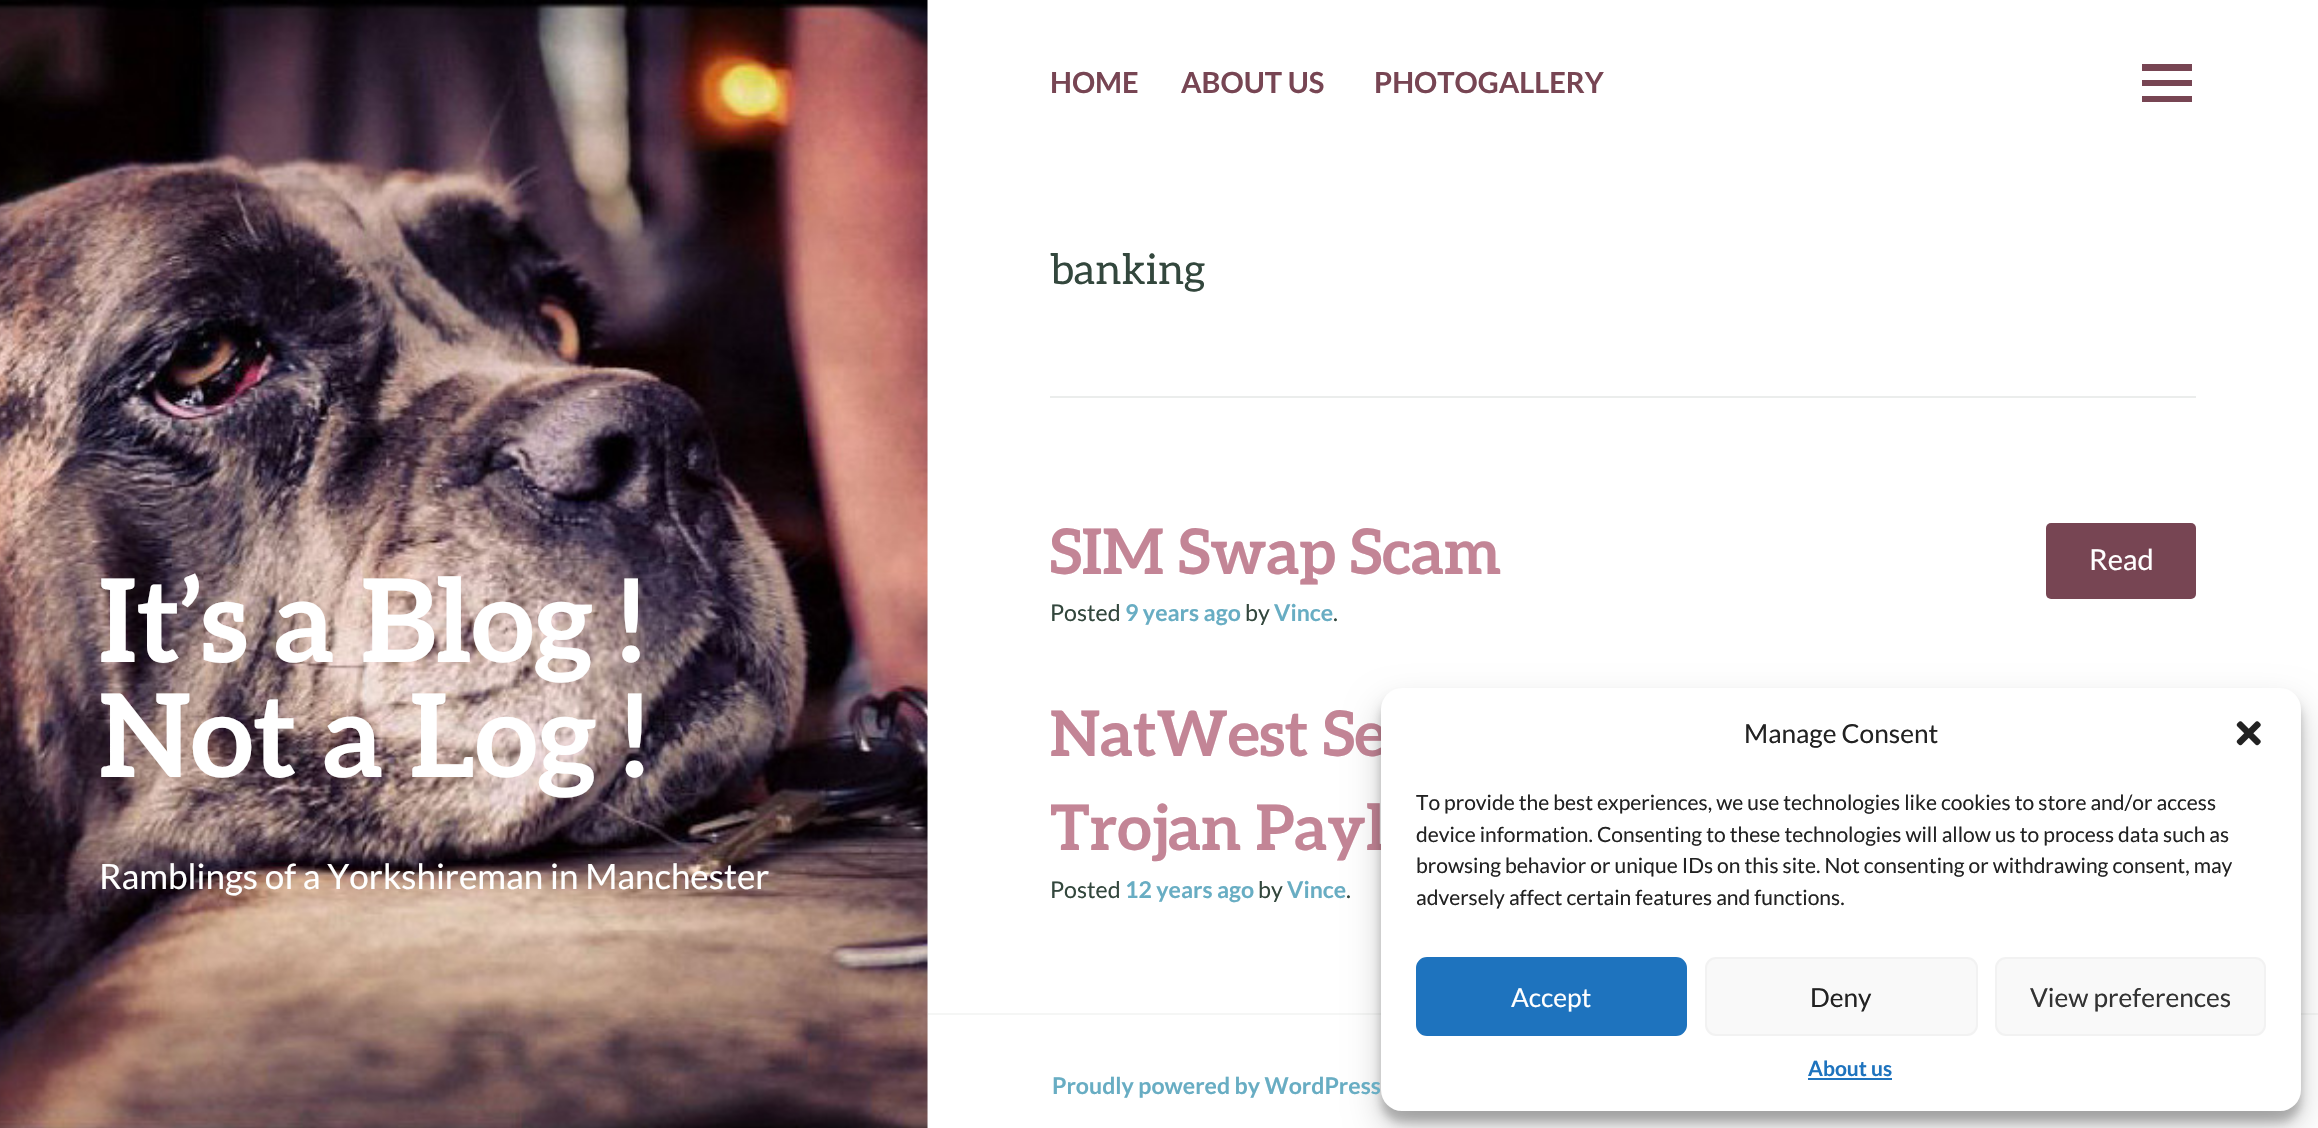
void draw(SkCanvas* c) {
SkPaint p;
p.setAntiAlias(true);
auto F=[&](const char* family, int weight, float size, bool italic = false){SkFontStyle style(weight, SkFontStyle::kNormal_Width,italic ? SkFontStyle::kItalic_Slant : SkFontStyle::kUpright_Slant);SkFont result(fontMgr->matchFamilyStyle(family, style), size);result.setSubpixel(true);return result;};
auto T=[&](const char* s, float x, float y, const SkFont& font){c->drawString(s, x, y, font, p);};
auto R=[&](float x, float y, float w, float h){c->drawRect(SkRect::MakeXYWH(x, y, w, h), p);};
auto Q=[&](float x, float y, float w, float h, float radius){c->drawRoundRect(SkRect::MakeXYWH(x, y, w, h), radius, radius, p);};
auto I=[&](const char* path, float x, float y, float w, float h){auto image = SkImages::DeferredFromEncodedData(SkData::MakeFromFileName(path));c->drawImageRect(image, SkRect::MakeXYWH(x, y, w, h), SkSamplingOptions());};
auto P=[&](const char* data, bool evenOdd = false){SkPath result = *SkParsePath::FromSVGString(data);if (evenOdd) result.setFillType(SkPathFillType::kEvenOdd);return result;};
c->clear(0xffffffff);
p.setColor(0xfff6f7f6);
R(927,0,1,1128);
I("1.png",0,0,928,1128);
auto f1 = F("Aleo",700,115.5);
p.setColor(0xffffffff);
T("It’s a Blog !",99,662,f1);
T("Not a Log !",99,777,f1);
auto f2 = F("Lato",400,35);
T("Ramblings of a Yorkshireman in Manchester",99,889,f2);
auto f3 = F("Lato",700,29);
p.setColor(0xff774553);
T("HOME",1050,93,f3);
T("ABOUT US",1181,93,f3);
T("PHOTOGALLERY",1374,93,f3);
c->drawPath(P("M2192 64v7h-50v-7zm-50 16h50v6h-50zm0 16h50v6h-50z"),p);
auto f4 = F("Aleo",400,42);
p.setColor(0xff33473d);
T("banking",1050,284,f4);
p.setColor(0xffebedec);
R(1050,396,1146,2);
auto f5 = F("Aleo",700,63);
p.setColor(0xffc38596);
T("SIM Swap Scam",1050,574,f5);
p.setColor(0xff774553);
Q(2046,523,150,76,5);
auto f6 = F("Lato",400,29);
p.setColor(0xffffffff);
T("Read",2089,570,f6);
auto f7 = F("Lato",400,23.1);
p.setColor(0xff33473d);
T("Posted",1050,621,f7);
auto f8 = F("Lato",700,23.1);
p.setColor(0xff68adc3);
T("9 years ago",1125,621,f8);
p.setColor(0xff33473d);
T("by",1245,621,f7);
p.setColor(0xff68adc3);
T("Vince",1274,621,f8);
p.setColor(0xff33473d);
T(".",1333,621,f7);
p.setColor(0xffc38596);
T("NatWest Se",1050,756,f5);
T("Trojan Payl",1050,850,f5);
p.setColor(0xff33473d);
T("Posted",1050,898,f7);
p.setColor(0xff68adc3);
T("12 years ago",1125,898,f8);
p.setColor(0xff33473d);
T("by",1258,898,f7);
p.setColor(0xff68adc3);
T("Vince",1287,898,f8);
p.setColor(0xff33473d);
T(".",1346,898,f7);
p.setColor(0xfff5f6f5);
R(928,1013,1390,2);
p.setColor(0x3b000000);
p.setMaskFilter(SkMaskFilter::MakeBlur(kNormal_SkBlurStyle, 5));
c->drawRoundRect(SkRect::MakeXYWH(1381,698,920,424),21,21,p);
p.setMaskFilter(nullptr);
p.setColor(0x30000000);
p.setMaskFilter(SkMaskFilter::MakeBlur(kNormal_SkBlurStyle, 17.5));
c->drawRoundRect(SkRect::MakeXYWH(1381,705,920,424),21,21,p);
p.setMaskFilter(nullptr);
p.setColor(0xffffffff);
Q(1381,688,920,423,21);
auto f9 = F("Lato",400,26.25);
p.setColor(0xff222222);
T("Manage Consent",1744,743,f9);
I("2.png",2236,721,25,25);
auto f10 = F("Lato",400,21);
T("To provide the best experiences, we use technologies like cookies to store and/or access",1416,810,f10);
T("device information. Consenting to these technologies will allow us to process data such as",1416,842,f10);
T("browsing behavior or unique IDs on this site. Not consenting or withdrawing consent, may",1416,873,f10);
T("adversely affect certain features and functions.",1416,905,f10);
p.setColor(0xff1e73be);
c->drawRoundRect(SkRect::MakeXYWH(1417,958,269,77),10,10,p);
p.setStroke(true);
p.setStrokeWidth(2);
c->drawRoundRect(SkRect::MakeXYWH(1417,958,269,77),10,10,p);
p.setStroke(false);
p.setColor(0xffffffff);
T("Accept",1511,1007,f9);
p.setColor(0xfff9f9f9);
c->drawRoundRect(SkRect::MakeXYWH(1706,958,271,77),10,10,p);
p.setStroke(true);
p.setColor(0xfff2f2f2);
c->drawRoundRect(SkRect::MakeXYWH(1706,958,271,77),10,10,p);
p.setStroke(false);
p.setColor(0xff222222);
T("Deny",1810,1007,f9);
p.setColor(0xfff9f9f9);
c->drawRoundRect(SkRect::MakeXYWH(1996,958,269,77),10,10,p);
p.setStroke(true);
p.setColor(0xfff2f2f2);
c->drawRoundRect(SkRect::MakeXYWH(1996,958,269,77),10,10,p);
p.setStroke(false);
p.setColor(0xff333333);
T("View preferences",2030,1007,f9);
auto f11 = F("Lato",700,21);
p.setColor(0xff1e73be);
T("About us",1808,1076,f11);
R(1808,1078,84,2);
p.setColor(0xff68adc3);
T("Proudly powered by WordPress",1052,1094,f8);
}
